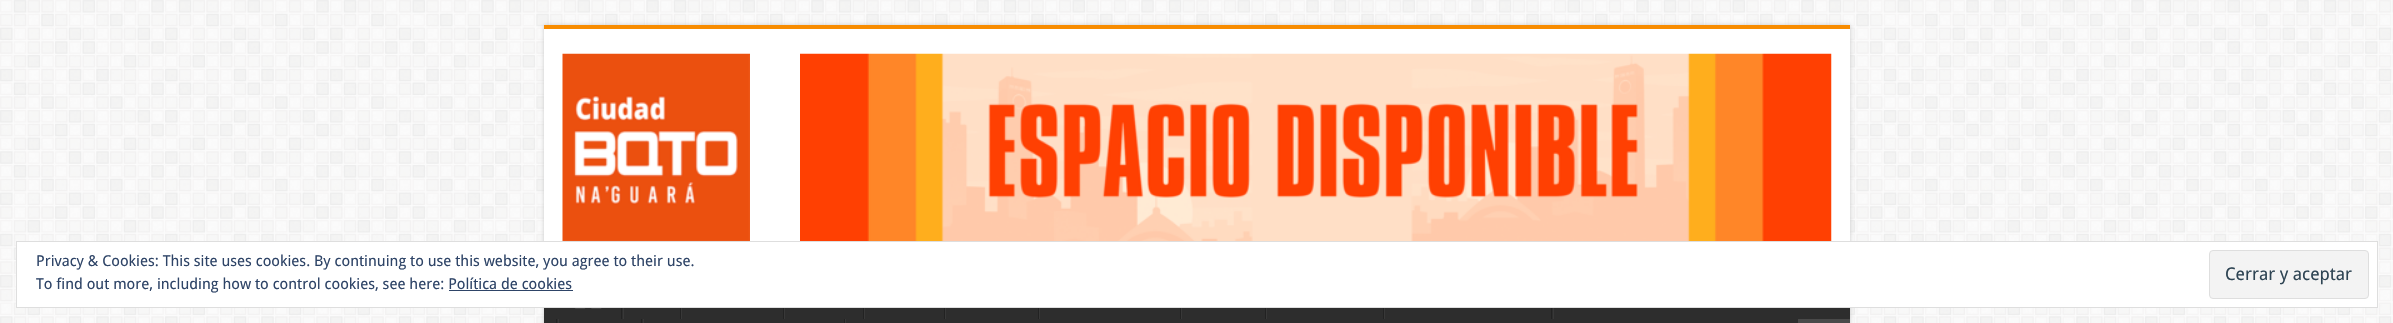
void draw(SkCanvas* c) {
SkPaint p;
p.setAntiAlias(true);
auto F=[&](const char* family, int weight, float size, bool italic = false){SkFontStyle style(weight, SkFontStyle::kNormal_Width,italic ? SkFontStyle::kItalic_Slant : SkFontStyle::kUpright_Slant);SkFont result(fontMgr->matchFamilyStyle(family, style), size);result.setSubpixel(true);return result;};
auto T=[&](const char* s, float x, float y, const SkFont& font){c->drawString(s, x, y, font, p);};
auto R=[&](float x, float y, float w, float h){c->drawRect(SkRect::MakeXYWH(x, y, w, h), p);};
auto I=[&](const char* path, float x, float y, float w, float h){auto image = SkImages::DeferredFromEncodedData(SkData::MakeFromFileName(path));c->drawImageRect(image, SkRect::MakeXYWH(x, y, w, h), SkSamplingOptions());};
c->clear(0xffffffff);
I("1.png",0,0,2393,323);
p.setColor(0xffcacaca);
p.setMaskFilter(SkMaskFilter::MakeBlur(kNormal_SkBlurStyle, 2));
c->drawRect(SkRect::MakeXYWH(544,25,1306,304),p);
p.setMaskFilter(nullptr);
p.setColor(0xffffffff);
R(544,29,1306,212);
p.setColor(0xfff88c00);
R(544,25,1306,4);
I("2.png",562,53,188,188);
I("3.png",800,53,1032,188);
p.setColor(0xff2d2d2d);
R(544,308,1306,15);
I("4.png",574,308,28,1);
p.setColor(0xff222222);
R(621,308,1,11);
p.setColor(0xff383838);
R(623,308,1,11);
p.setColor(0xff222222);
R(680,308,1,11);
p.setColor(0xff383838);
R(681,308,1,11);
p.setColor(0xff222222);
R(783,308,1,11);
p.setColor(0xff383838);
R(784,308,1,11);
p.setColor(0xff222222);
R(863,308,1,11);
p.setColor(0xff383838);
R(864,308,1,11);
p.setColor(0xff222222);
R(944,308,1,11);
p.setColor(0xff383838);
R(945,308,1,11);
p.setColor(0xff222222);
R(1038,308,1,11);
p.setColor(0xff383838);
R(1039,308,1,11);
p.setColor(0xff222222);
R(1180,308,1,11);
p.setColor(0xff383838);
R(1181,308,1,11);
p.setColor(0xff222222);
R(1265,308,1,11);
p.setColor(0xff383838);
R(1266,308,1,11);
p.setColor(0xff222222);
R(1383,308,1,11);
p.setColor(0xff383838);
R(1384,308,1,11);
p.setColor(0xff222222);
R(1551,308,1,11);
p.setColor(0xff383838);
R(1553,308,1,11);
p.setColor(0xff222222);
R(556,319,1,4);
p.setColor(0xff383838);
R(558,319,1,4);
p.setColor(0xff222222);
R(641,319,1,4);
p.setColor(0xff383838);
R(643,319,1,4);
p.setColor(0xff222222);
R(844,319,1,4);
p.setColor(0xff383838);
R(845,319,1,4);
p.setColor(0xff494949);
R(1798,319,52,4);
p.setColor(0xffffffff);
c->drawRect(SkRect::MakeXYWH(16.5,241.5,2361,66),p);
p.setStroke(true);
p.setStrokeWidth(1);
p.setColor(0xffdedede);
c->drawRect(SkRect::MakeXYWH(16.5,241.5,2361,66),p);
auto f1 = F("Droid Sans",400,15);
p.setStroke(false);
p.setColor(0xff2e4467);
T("Privacy & Cookies: This site uses cookies. By continuing to use this website, you agree to their use.",36,266,f1);
T("To find out more, including how to control cookies, see here: Política de cookies",36,289,f1);
p.setColor(0xfff3f3f3);
c->drawRoundRect(SkRect::MakeXYWH(2209.5,250.5,159,48),3.5,3.5,p);
p.setStroke(true);
p.setColor(0xffdedede);
c->drawRoundRect(SkRect::MakeXYWH(2209.5,250.5,159,48),3.5,3.5,p);
auto f2 = F("Droid Sans",400,17.5);
p.setStroke(false);
p.setColor(0xff2e4453);
T("Cerrar y aceptar",2225,280,f2);
p.setColor(0xff2e4467);
R(449,290,124,1);
}
